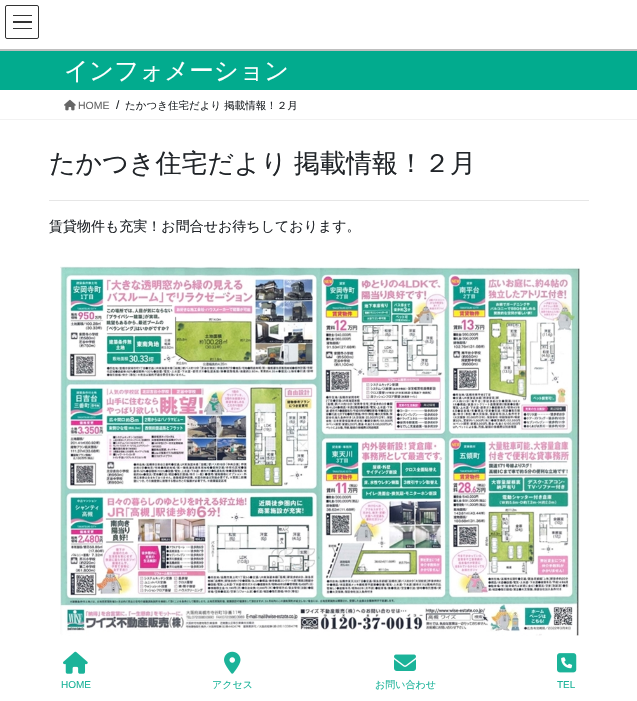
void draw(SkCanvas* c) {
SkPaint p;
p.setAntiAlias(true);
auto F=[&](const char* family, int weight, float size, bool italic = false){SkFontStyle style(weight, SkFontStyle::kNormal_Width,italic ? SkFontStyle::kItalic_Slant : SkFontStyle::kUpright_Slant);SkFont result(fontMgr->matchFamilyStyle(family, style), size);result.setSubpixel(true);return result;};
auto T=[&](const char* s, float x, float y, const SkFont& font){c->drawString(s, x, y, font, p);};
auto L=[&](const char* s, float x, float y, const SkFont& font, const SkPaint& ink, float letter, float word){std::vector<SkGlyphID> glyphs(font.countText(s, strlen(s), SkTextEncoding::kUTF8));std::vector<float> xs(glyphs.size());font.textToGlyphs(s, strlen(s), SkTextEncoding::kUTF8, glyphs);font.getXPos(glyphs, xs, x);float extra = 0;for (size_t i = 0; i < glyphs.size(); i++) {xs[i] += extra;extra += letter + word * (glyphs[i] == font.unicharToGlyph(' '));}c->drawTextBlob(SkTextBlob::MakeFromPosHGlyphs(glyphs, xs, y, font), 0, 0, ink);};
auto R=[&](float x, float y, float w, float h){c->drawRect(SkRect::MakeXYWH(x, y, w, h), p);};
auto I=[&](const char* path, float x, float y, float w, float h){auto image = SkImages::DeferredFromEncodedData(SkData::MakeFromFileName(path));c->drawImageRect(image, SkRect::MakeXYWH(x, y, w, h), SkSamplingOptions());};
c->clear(0xffffffff);
p.setColor(0xff333333);
R(13,15,19,1);
R(13,21,19,2);
R(13,28,19,1);
p.setStroke(true);
p.setStrokeWidth(1);
c->drawRoundRect(SkRect::MakeXYWH(5.5,5.5,33,33),1.5,1.5,p);
p.setStroke(false);
p.setColor(0xffbfbfbf);
R(0,49,637,2);
p.setColor(0xff02ab8e);
R(0,51,637,39);
auto f1 = F("WenQuanYi Zen Hei",500,24.5);
p.setColor(0xffffffff);
T("インフォメーション",64,79,f1);
p.setColor(0xfff2f2f2);
R(0,119,637,1);
I("1.png",64,99,12,12);
auto f2 = F("Liberation Sans",400,10.5);
p.setColor(0xff666666);
T("HOME",78,109,f2);
auto f3 = F("Liberation Sans",400,12);
p.setColor(0xff212529);
T("/",116,109,f3);
auto f4 = F("WenQuanYi Zen Hei",500,10.5);
T("たかつき住宅だより 掲載情報！２月",125,109,f4);
auto f5 = F("WenQuanYi Zen Hei",500,26);
L("たかつき住宅だより 掲載情報！２月",49,172,f5,p,0,-1);
p.setColor(0xffe6e6e6);
R(49,200,540,1);
auto f6 = F("WenQuanYi Zen Hei",500,14);
p.setColor(0xff212529);
T("賃貸物件も充実！お問合せお待ちしております。",49,231,f6);
I("2.png",60,266,520,370);
I("3.png",63,651,25,23);
auto f7 = F("Liberation Sans",400,10);
p.setColor(0xff1bb399);
T("HOME",61,688,f7);
I("4.png",224,651,17,23);
auto f8 = F("WenQuanYi Zen Hei",500,10);
T("アクセス",212,688,f8);
I("5.png",394,654,22,17);
T("お問い合わせ",375,688,f8);
I("6.png",557,653,20,20);
T("TEL",557,688,f7);
}
